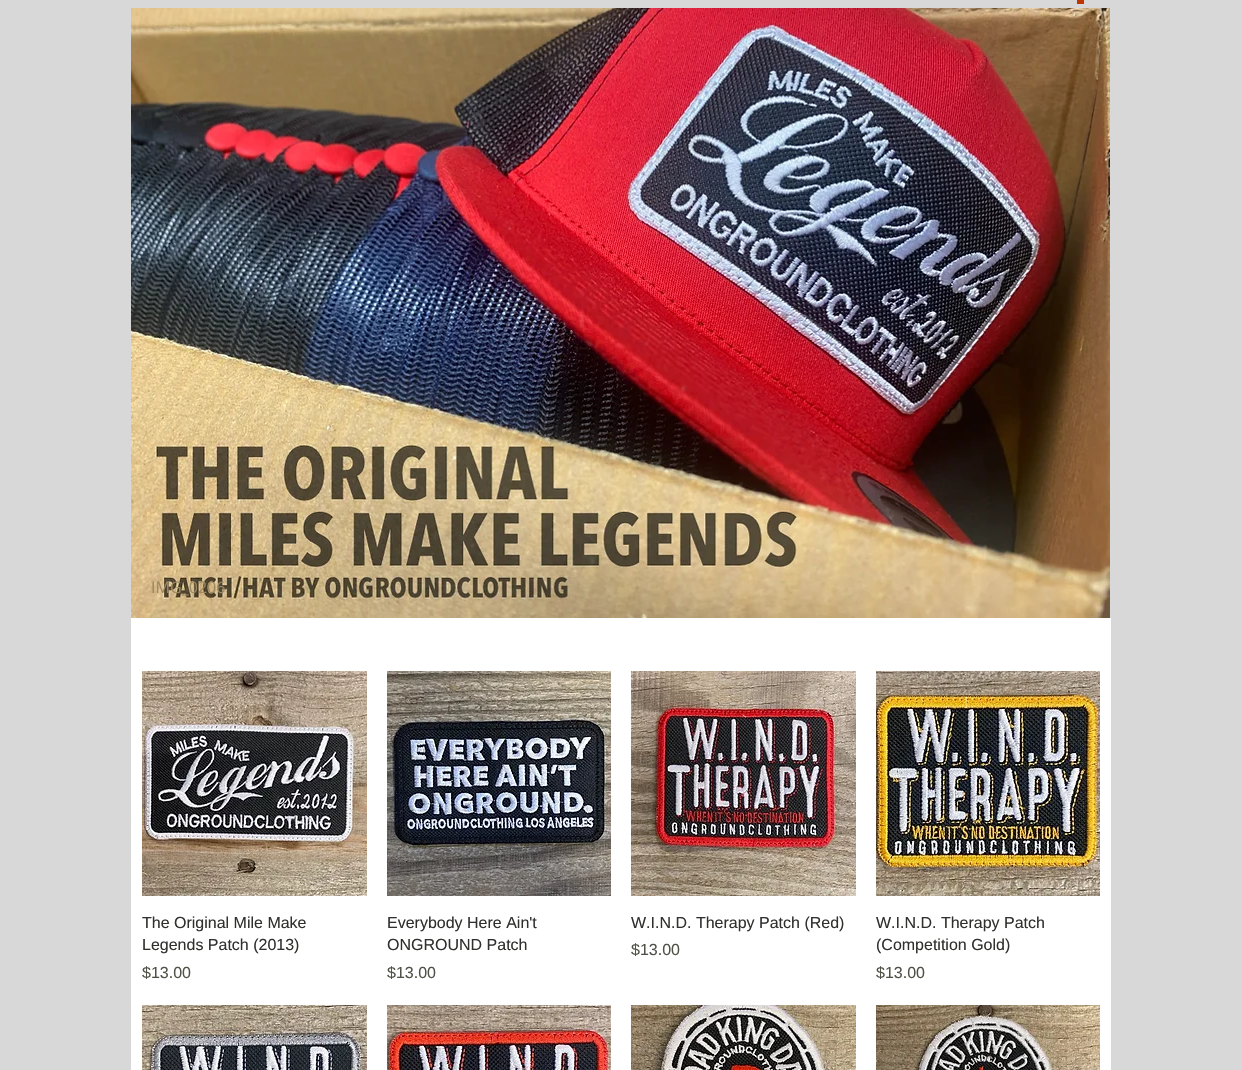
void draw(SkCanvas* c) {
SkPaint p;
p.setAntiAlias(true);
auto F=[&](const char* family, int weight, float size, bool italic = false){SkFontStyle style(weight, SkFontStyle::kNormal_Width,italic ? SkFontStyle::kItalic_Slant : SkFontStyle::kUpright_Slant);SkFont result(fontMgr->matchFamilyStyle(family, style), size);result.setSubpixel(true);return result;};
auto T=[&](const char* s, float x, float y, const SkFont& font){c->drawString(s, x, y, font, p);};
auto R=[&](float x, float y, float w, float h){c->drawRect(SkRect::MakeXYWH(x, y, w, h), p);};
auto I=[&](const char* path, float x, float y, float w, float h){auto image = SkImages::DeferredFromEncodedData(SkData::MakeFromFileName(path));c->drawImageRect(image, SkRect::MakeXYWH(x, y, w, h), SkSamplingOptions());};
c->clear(0xffd8d8d8);
p.setColor(0xffbf3600);
R(1077,0,7,4);
I("1.png",131,8,979,610);
auto f1 = F("Open Sans",400,16);
p.setColor(0xff9c8863);
T("IMG_0206",151,593,f1);
p.setColor(0xffffffff);
R(131,618,980,452);
I("2.png",142,671,225,225);
auto f2 = F("Liberation Sans",400,16);
p.setColor(0xff30302e);
T("The Original Mile Make",142,928,f2);
T("Legends Patch (2013)",142,950,f2);
p.setColor(0xff505046);
T("$13.00",142,978,f2);
I("3.png",387,671,224,225);
p.setColor(0xff30302e);
T("Everybody Here Ain't",387,928,f2);
T("ONGROUND Patch",387,950,f2);
p.setColor(0xff505046);
T("$13.00",387,978,f2);
I("4.png",631,671,225,225);
p.setColor(0xff30302e);
T("W.I.N.D. Therapy Patch (Red)",631,928,f2);
p.setColor(0xff505046);
T("$13.00",631,955,f2);
I("5.png",876,671,224,225);
p.setColor(0xff30302e);
T("W.I.N.D. Therapy Patch",876,928,f2);
T("(Competition Gold)",876,950,f2);
p.setColor(0xff505046);
T("$13.00",876,978,f2);
I("6.png",142,1005,225,65);
I("7.png",387,1005,224,65);
I("8.png",631,1005,225,65);
I("9.png",876,1005,224,65);
}
